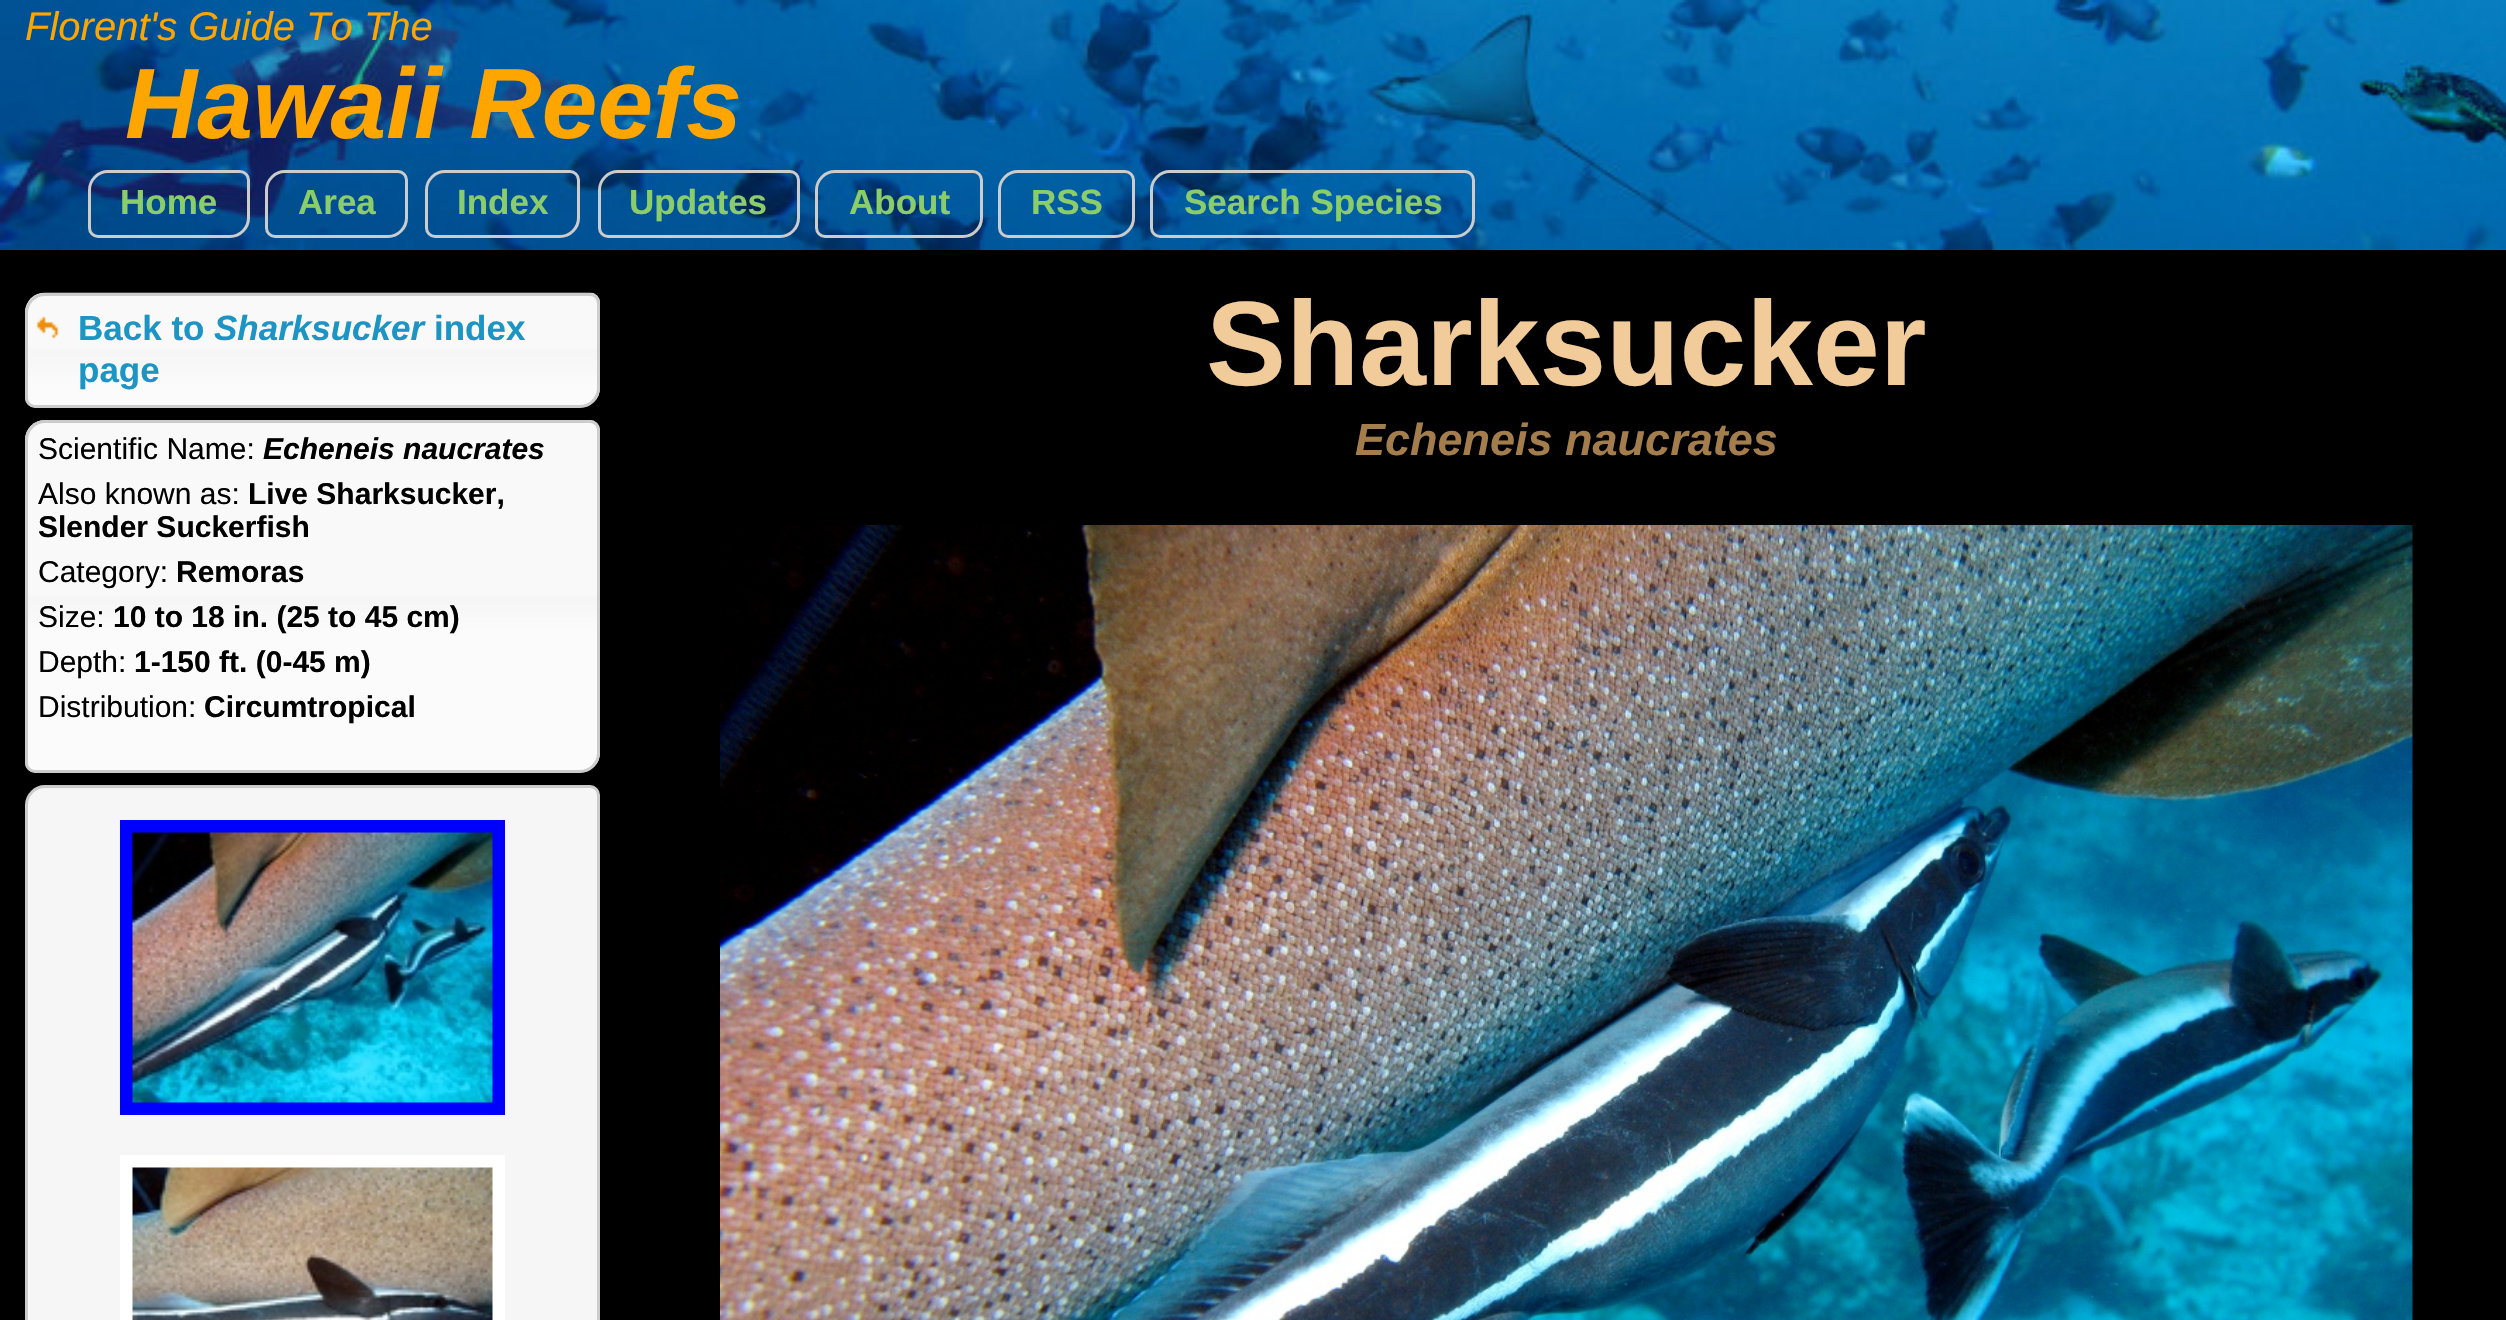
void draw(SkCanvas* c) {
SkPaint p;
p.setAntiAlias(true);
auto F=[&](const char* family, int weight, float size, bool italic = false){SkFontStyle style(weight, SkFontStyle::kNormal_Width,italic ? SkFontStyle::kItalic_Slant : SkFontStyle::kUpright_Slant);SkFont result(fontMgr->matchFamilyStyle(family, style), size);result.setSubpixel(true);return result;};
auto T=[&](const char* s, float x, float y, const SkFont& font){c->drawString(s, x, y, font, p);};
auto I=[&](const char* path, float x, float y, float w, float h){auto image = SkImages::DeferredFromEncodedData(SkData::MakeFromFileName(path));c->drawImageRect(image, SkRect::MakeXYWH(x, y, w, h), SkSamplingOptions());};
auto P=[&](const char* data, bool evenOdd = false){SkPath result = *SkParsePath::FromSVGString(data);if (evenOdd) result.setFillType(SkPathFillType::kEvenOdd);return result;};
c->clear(0xff000000);
I("1.png",0,0,2506,250);
auto f1 = F("Liberation Sans",400,40,true);
p.setColor(0xffffa500);
T("Florent's Guide To The",25,40,f1);
auto f2 = F("Liberation Sans",700,100,true);
T("Hawaii Reefs",125,138,f2);
p.setStroke(true);
p.setStrokeWidth(3);
p.setColor(0xffcccccc);
c->drawPath(P("M108 171.5h132c4.5 0 8.5 4 8.5 8.5v38c0 10-8.5 18.5-18.5 18.5h-132c-4.5 0-8.5-4-8.5-8.5v-38c0-10 8.5-18.5 18.5-18.5z"),p);
auto f3 = F("Liberation Sans",700,35);
p.setStroke(false);
p.setColor(0xff8bcd6b);
T("Home",120,214,f3);
p.setStroke(true);
p.setColor(0xffcccccc);
c->drawPath(P("M285 171.5h113c4.5 0 8.5 4 8.5 8.5v38c0 10-8.5 18.5-18.5 18.5h-113c-4.5 0-8.5-4-8.5-8.5v-38c0-10 8.5-18.5 18.5-18.5z"),p);
p.setStroke(false);
p.setColor(0xff8bcd6b);
T("Area",298,214,f3);
p.setStroke(true);
p.setColor(0xffcccccc);
c->drawPath(P("M445 171.5h125c4.5 0 8.5 4 8.5 8.5v38c0 10-8.5 18.5-18.5 18.5h-125c-4.5 0-8.5-4-8.5-8.5v-38c0-10 8.5-18.5 18.5-18.5z"),p);
p.setStroke(false);
p.setColor(0xff8bcd6b);
T("Index",457,214,f3);
p.setStroke(true);
p.setColor(0xffcccccc);
c->drawPath(P("M618 171.5h172c4.5 0 8.5 4 8.5 8.5v38c0 10-8.5 18.5-18.5 18.5h-172c-4.5 0-8.5-4-8.5-8.5v-38c0-10 8.5-18.5 18.5-18.5z"),p);
p.setStroke(false);
p.setColor(0xff8bcd6b);
T("Updates",629,214,f3);
p.setStroke(true);
p.setColor(0xffcccccc);
c->drawPath(P("M835 171.5h138c4.5 0 8.5 4 8.5 8.5v38c0 10-8.5 18.5-18.5 18.5h-138c-4.5 0-8.5-4-8.5-8.5v-38c0-10 8.5-18.5 18.5-18.5z"),p);
p.setStroke(false);
p.setColor(0xff8bcd6b);
T("About",849,214,f3);
p.setStroke(true);
p.setColor(0xffcccccc);
c->drawPath(P("M1018 171.5h107c4.5 0 8.5 4 8.5 8.5v38c0 10-8.5 18.5-18.5 18.5h-107c-4.5 0-8.5-4-8.5-8.5v-38c0-10 8.5-18.5 18.5-18.5z"),p);
p.setStroke(false);
p.setColor(0xff8bcd6b);
T("RSS",1031,214,f3);
p.setStroke(true);
p.setColor(0xffcccccc);
c->drawPath(P("M1170 171.5h295c4.5 0 8.5 4 8.5 8.5v38c0 10-8.5 18.5-18.5 18.5h-295c-4.5 0-8.5-4-8.5-8.5v-38c0-10 8.5-18.5 18.5-18.5z"),p);
p.setStroke(false);
p.setColor(0xff8bcd6b);
T("Search Species",1184,214,f3);
I("2.png",25,292,575,116);
p.setStroke(true);
p.setColor(0xffcccccc);
c->drawPath(P("M45 294.5h545c4.5 0 8.5 4 8.5 8.5v85c0 10-8.5 18.5-18.5 18.5h-545c-4.5 0-8.5-4-8.5-8.5v-85c0-10 8.5-18.5 18.5-18.5z"),p);
I("3.png",36,316,23,23);
p.setStroke(false);
p.setColor(0xff1c94c4);
T("Back to",78,340,f3);
auto f4 = F("Liberation Sans",700,35,true);
T("Sharksucker",214,340,f4);
T("index",434,340,f3);
T("page",78,382,f3);
I("4.png",25,420,575,353);
p.setStroke(true);
p.setColor(0xffcccccc);
c->drawPath(P("M45 421.5h545c4.5 0 8.5 4 8.5 8.5v323c0 10-8.5 18.5-18.5 18.5h-545c-4.5 0-8.5-4-8.5-8.5v-323c0-10 8.5-18.5 18.5-18.5z"),p);
auto f5 = F("Liberation Sans",400,30);
p.setStroke(false);
p.setColor(0xff000000);
T("Scientific Name:",38,459,f5);
auto f6 = F("Liberation Sans",700,30,true);
T("Echeneis naucrates",263,459,f6);
T("Also known as:",38,504,f5);
auto f7 = F("Liberation Sans",700,30);
T("Live Sharksucker,",248,504,f7);
T("Slender Suckerfish",38,537,f7);
T("Category:",38,582,f5);
T("Remoras",176,582,f7);
T("Size:",38,627,f5);
T("10 to 18 in. (25 to 45 cm)",113,627,f7);
T("Depth:",38,672,f5);
T("1-150 ft. (0-45 m)",134,672,f7);
T("Distribution:",38,717,f5);
T("Circumtropical",204,717,f7);
p.setColor(0xfff6f6f6);
c->drawPath(P("M45 786.5h545c4.5 0 8.5 4 8.5 8.5v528c0 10-8.5 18.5-18.5 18.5h-545c-4.5 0-8.5-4-8.5-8.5v-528c0-10 8.5-18.5 18.5-18.5z"),p);
p.setStroke(true);
p.setColor(0xffcccccc);
c->drawPath(P("M45 786.5h545c4.5 0 8.5 4 8.5 8.5v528c0 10-8.5 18.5-18.5 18.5h-545c-4.5 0-8.5-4-8.5-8.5v-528c0-10 8.5-18.5 18.5-18.5z"),p);
p.setStrokeWidth(13);
p.setColor(0xff0000ff);
c->drawRect(SkRect::MakeXYWH(126.5,826.5,372,282),p);
I("5.png",132,832,361,271);
p.setColor(0xffffffff);
c->drawRect(SkRect::MakeXYWH(126.5,1161.5,372,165),p);
I("6.png",132,1167,361,153);
auto f8 = F("Liberation Sans",700,120);
p.setStroke(false);
p.setColor(0xfff1cb99);
T("Sharksucker",1206,385,f8);
auto f9 = F("Liberation Sans",700,45,true);
p.setColor(0xffa37d4c);
T("Echeneis naucrates",1355,455,f9);
I("7.png",720,525,1693,795);
}
